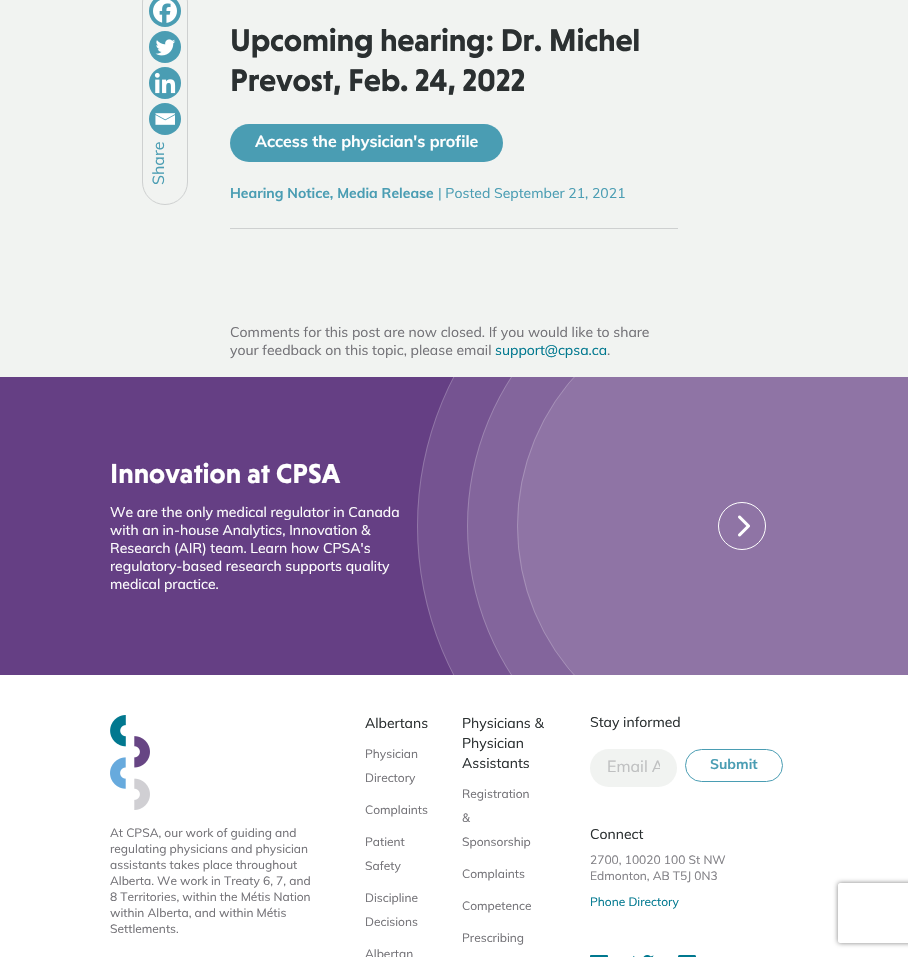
void draw(SkCanvas* c) {
SkPaint p;
p.setAntiAlias(true);
auto F=[&](const char* family, int weight, float size, bool italic = false){SkFontStyle style(weight, SkFontStyle::kNormal_Width,italic ? SkFontStyle::kItalic_Slant : SkFontStyle::kUpright_Slant);SkFont result(fontMgr->matchFamilyStyle(family, style), size);result.setSubpixel(true);return result;};
auto T=[&](const char* s, float x, float y, const SkFont& font){c->drawString(s, x, y, font, p);};
auto L=[&](const char* s, float x, float y, const SkFont& font, const SkPaint& ink, float letter, float word){std::vector<SkGlyphID> glyphs(font.countText(s, strlen(s), SkTextEncoding::kUTF8));std::vector<float> xs(glyphs.size());font.textToGlyphs(s, strlen(s), SkTextEncoding::kUTF8, glyphs);font.getXPos(glyphs, xs, x);float extra = 0;for (size_t i = 0; i < glyphs.size(); i++) {xs[i] += extra;extra += letter + word * (glyphs[i] == font.unicharToGlyph(' '));}c->drawTextBlob(SkTextBlob::MakeFromPosHGlyphs(glyphs, xs, y, font), 0, 0, ink);};
auto R=[&](float x, float y, float w, float h){c->drawRect(SkRect::MakeXYWH(x, y, w, h), p);};
auto Q=[&](float x, float y, float w, float h, float radius){c->drawRoundRect(SkRect::MakeXYWH(x, y, w, h), radius, radius, p);};
auto I=[&](const char* path, float x, float y, float w, float h){auto image = SkImages::DeferredFromEncodedData(SkData::MakeFromFileName(path));c->drawImageRect(image, SkRect::MakeXYWH(x, y, w, h), SkSamplingOptions());};
auto P=[&](const char* data, bool evenOdd = false){SkPath result = *SkParsePath::FromSVGString(data);if (evenOdd) result.setFillType(SkPathFillType::kEvenOdd);return result;};
c->clear(0xfff1f3f1);
p.setStroke(true);
p.setStrokeWidth(1);
p.setColor(0xffced0d0);
c->drawRoundRect(SkRect::MakeXYWH(142.5,-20.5,45,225),22.5,22.5,p);
p.setStroke(false);
p.setColor(0xff4a9db3);
c->drawCircle(165,11,16,p);
I("1.png",153,0,24,23);
c->drawCircle(165,47,16,p);
I("2.png",155,39,21,17);
c->drawCircle(165,83,16,p);
I("3.png",154,72,22,22);
c->drawCircle(165,119,16,p);
I("4.png",155,113,20,12);
auto f1 = F("Muli",400,16);
c->save();
c->rotate(-90,164,185);
T("Share",164,185,f1);
c->restore();
p.setColor(0xffced0d0);
R(230,228,448,1);
auto f2 = F("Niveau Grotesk",700,32);
p.setColor(0xff2b3031);
L("Upcoming hearing: Dr. Michel",230,51,f2,p,-.25,0);
L("Prevost, Feb. 24, 2022",230,91,f2,p,-.25,0);
p.setColor(0xff4a9db3);
Q(230,124,273,38,19);
auto f3 = F("Muli",700,16);
p.setColor(0xffffffff);
T("Access the physician's profile",255,147,f3);
auto f4 = F("Muli",700,14);
p.setColor(0xff4a9db3);
T("Hearing Notice, Media Release",230,198,f4);
auto f5 = F("Muli",400,14);
T("| Posted September 21, 2021",438,198,f5);
p.setColor(0xff737277);
T("Comments for this post are now closed. If you would like to share",230,337,f5);
T("your feedback on this topic, please email",230,355,f5);
p.setColor(0xff00788f);
T("support@cpsa.ca",495,355,f5);
p.setColor(0xff737277);
T(".",607,355,f5);
p.setColor(0xff653f84);
R(0,377,574,298);
auto f6 = F("Niveau Grotesk",700,28);
p.setColor(0xffffffff);
T("Innovation at CPSA",110,483,f6);
T("We are the only medical regulator in Canada",110,517,f5);
T("with an in-house Analytics, Innovation &",110,535,f5);
T("Research (AIR) team. Learn how CPSA's",110,553,f5);
T("regulatory-based research supports quality",110,571,f5);
T("medical practice.",110,589,f5);
R(0,675,908,282);
c->save();
c->clipRect(SkRect::MakeXYWH(0,377,908,298));
p.setColor(0xff745290);
c->drawCircle(742,526,225,p);
p.setStroke(true);
p.setColor(0x33ffffff);
c->drawCircle(742,526,224.5,p);
p.setStroke(false);
p.setColor(0x1affffff);
c->drawCircle(742,526,325,p);
p.setStroke(true);
p.setColor(0x33ffffff);
c->drawCircle(742,526,324.5,p);
c->restore();
p.setColor(0xffffffff);
c->drawCircle(742,526,23.5,p);
I("5.png",738,515,12,22);
c->save();
c->clipRect(SkRect::MakeXYWH(0,377,908,298));
p.setStroke(false);
p.setColor(0x1affffff);
c->drawCircle(742,526,275,p);
p.setStroke(true);
p.setColor(0x33ffffff);
c->drawCircle(742,526,274.5,p);
c->restore();
I("6.png",110,715,40,95);
auto f7 = F("Muli",400,12);
p.setStroke(false);
p.setColor(0xff737277);
T("At CPSA, our work of guiding and",110,837,f7);
T("regulating physicians and physician",110,853,f7);
T("assistants takes place throughout",110,869,f7);
T("Alberta. We work in Treaty 6, 7, and",110,885,f7);
T("8 Territories, within the Métis Nation",110,901,f7);
T("within Alberta, and within Métis",110,917,f7);
T("Settlements.",110,933,f7);
p.setColor(0xff2b3031);
T("Albertans",365,728,f5);
p.setColor(0xff737277);
T("Physician",365,758,f7);
T("Directory",365,782,f7);
T("Complaints",365,814,f7);
T("Patient",365,846,f7);
T("Safety",365,870,f7);
T("Discipline",365,902,f7);
T("Decisions",365,926,f7);
T("Albertan",365,958,f7);
p.setColor(0xff2b3031);
T("Physicians &",462,728,f5);
T("Physician",462,748,f5);
T("Assistants",462,768,f5);
p.setColor(0xff737277);
T("Registration",462,798,f7);
T("&",462,822,f7);
T("Sponsorship",462,846,f7);
T("Complaints",462,878,f7);
T("Competence",462,910,f7);
T("Prescribing",462,942,f7);
p.setColor(0xff2b3031);
T("Stay informed",590,727,f5);
p.setColor(0xfff1f3f1);
Q(590,749,87,38,19);
c->save();
c->clipRect(SkRect::MakeXYWH(607,760,53,16));
p.setColor(0xffbfc0c1);
T("Email A",607,772,f1);
c->restore();
p.setStroke(true);
p.setColor(0xff4a9db3);
c->drawRoundRect(SkRect::MakeXYWH(685.5,749.5,97,32),16,16,p);
p.setStroke(false);
T("Submit",710,769,f4);
p.setColor(0xff2b3031);
T("Connect",590,839,f5);
p.setColor(0xff818085);
T("2700, 10020 100 St NW",590,864,f7);
T("Edmonton, AB T5J 0N3",590,880,f7);
p.setColor(0xff00788f);
T("Phone Directory",590,906,f7);
I("7.png",590,955,18,2);
I("8.png",633,955,21,2);
I("9.png",678,955,18,2);
c->save();
c->clipPath(P("M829 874h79v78h-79zm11 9h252c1 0 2 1 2 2v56c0 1-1 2-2 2h-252c-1 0-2-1-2-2v-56c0-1 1-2 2-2z",true),true);
p.setColor(0xff808080);
p.setMaskFilter(SkMaskFilter::MakeBlur(kNormal_SkBlurStyle, 2.5));
c->drawRoundRect(SkRect::MakeXYWH(838,883,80,60),2,2,p);
p.setMaskFilter(nullptr);
c->restore();
}
